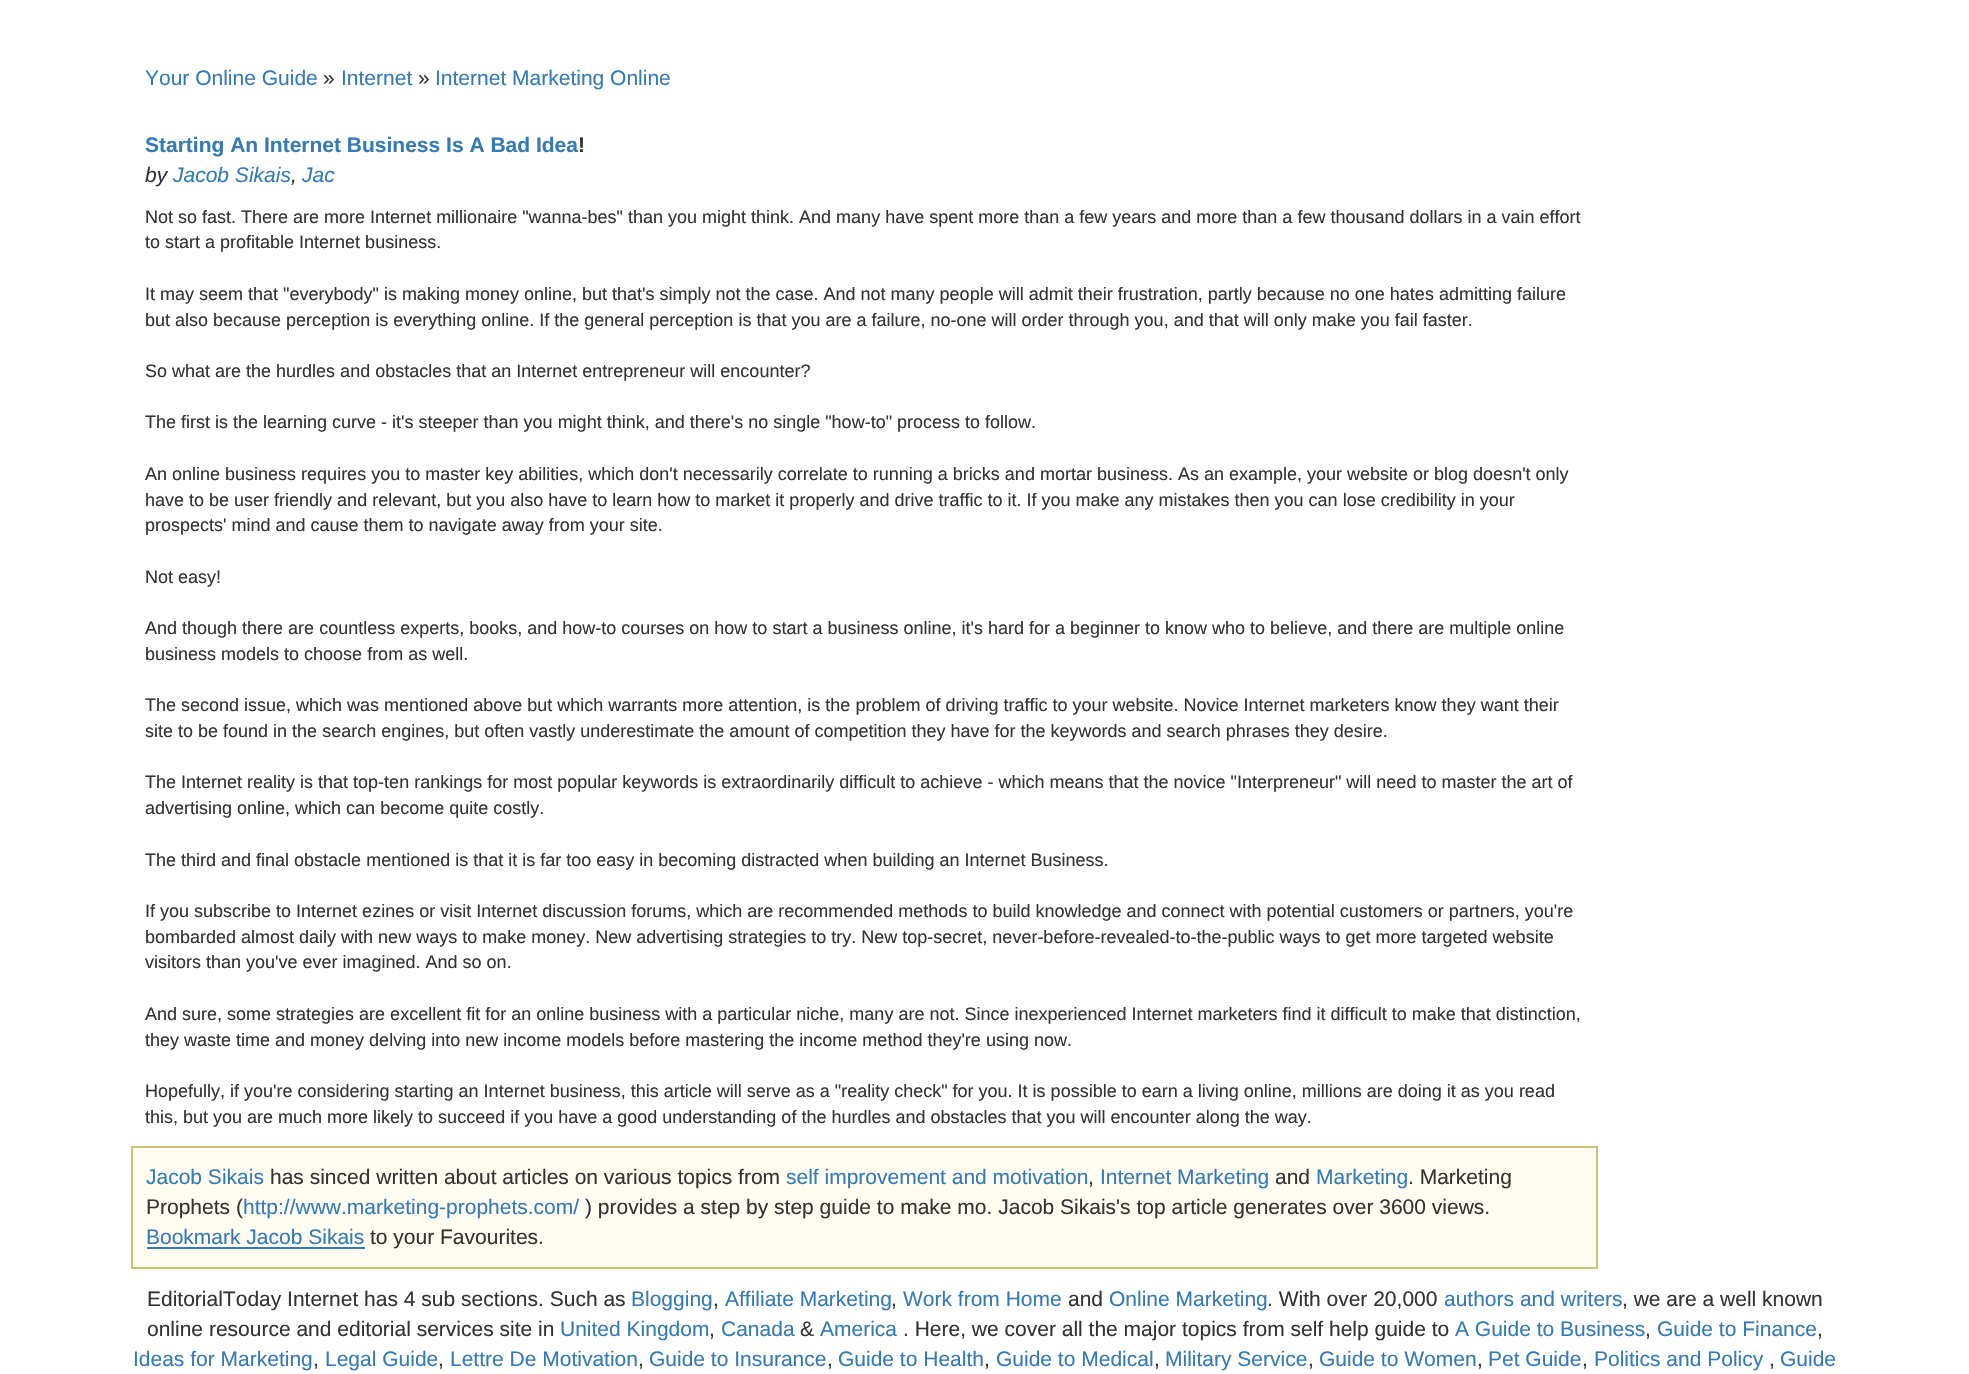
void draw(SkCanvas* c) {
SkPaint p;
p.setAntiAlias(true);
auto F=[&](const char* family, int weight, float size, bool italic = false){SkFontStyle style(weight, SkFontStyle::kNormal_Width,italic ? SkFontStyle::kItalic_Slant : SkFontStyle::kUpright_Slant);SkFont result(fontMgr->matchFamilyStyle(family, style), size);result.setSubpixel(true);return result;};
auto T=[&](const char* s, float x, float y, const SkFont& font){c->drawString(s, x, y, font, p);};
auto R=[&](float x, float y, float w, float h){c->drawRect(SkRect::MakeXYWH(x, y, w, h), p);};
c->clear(0xffffffff);
auto f1 = F("Liberation Sans",400,21);
p.setColor(0xff337ab7);
T("Your Online Guide",145,85,f1);
p.setColor(0xff333333);
T("»",323,85,f1);
p.setColor(0xff337ab7);
T("Internet",341,85,f1);
p.setColor(0xff333333);
T("»",418,85,f1);
p.setColor(0xff337ab7);
T("Internet Marketing Online",435,85,f1);
auto f2 = F("Liberation Sans",700,21);
T("Starting An Internet Business Is A Bad Idea",145,152,f2);
p.setColor(0xff333333);
T("!",578,152,f2);
auto f3 = F("Liberation Sans",400,21,true);
T("by",145,182,f3);
p.setColor(0xff337ab7);
T("Jacob Sikais",173,182,f3);
p.setColor(0xff333333);
T(",",291,182,f3);
p.setColor(0xff337ab7);
T("Jac",302,182,f3);
auto f4 = F("Liberation Sans",400,18);
p.setColor(0xff333333);
T("Not so fast. There are more Internet millionaire \"wanna-bes\" than you might think. And many have spent more than a few years and more than a few thousand dollars in a vain effort",145,223,f4);
T("to start a profitable Internet business.",145,248,f4);
T("It may seem that \"everybody\" is making money online, but that's simply not the case. And not many people will admit their frustration, partly because no one hates admitting failure",145,300,f4);
T("but also because perception is everything online. If the general perception is that you are a failure, no-one will order through you, and that will only make you fail faster.",145,326,f4);
T("So what are the hurdles and obstacles that an Internet entrepreneur will encounter?",145,377,f4);
T("The first is the learning curve - it's steeper than you might think, and there's no single \"how-to\" process to follow.",145,428,f4);
T("An online business requires you to master key abilities, which don't necessarily correlate to running a bricks and mortar business. As an example, your website or blog doesn't only",145,480,f4);
T("have to be user friendly and relevant, but you also have to learn how to market it properly and drive traffic to it. If you make any mistakes then you can lose credibility in your",145,506,f4);
T("prospects' mind and cause them to navigate away from your site.",145,531,f4);
T("Not easy!",145,583,f4);
T("And though there are countless experts, books, and how-to courses on how to start a business online, it's hard for a beginner to know who to believe, and there are multiple online",145,634,f4);
T("business models to choose from as well.",145,660,f4);
T("The second issue, which was mentioned above but which warrants more attention, is the problem of driving traffic to your website. Novice Internet marketers know they want their",145,711,f4);
T("site to be found in the search engines, but often vastly underestimate the amount of competition they have for the keywords and search phrases they desire.",145,737,f4);
T("The Internet reality is that top-ten rankings for most popular keywords is extraordinarily difficult to achieve - which means that the novice \"Interpreneur\" will need to master the art of",145,788,f4);
T("advertising online, which can become quite costly.",145,814,f4);
T("The third and final obstacle mentioned is that it is far too easy in becoming distracted when building an Internet Business.",145,866,f4);
T("If you subscribe to Internet ezines or visit Internet discussion forums, which are recommended methods to build knowledge and connect with potential customers or partners, you're",145,917,f4);
T("bombarded almost daily with new ways to make money. New advertising strategies to try. New top-secret, never-before-revealed-to-the-public ways to get more targeted website",145,943,f4);
T("visitors than you've ever imagined. And so on.",145,968,f4);
T("And sure, some strategies are excellent fit for an online business with a particular niche, many are not. Since inexperienced Internet marketers find it difficult to make that distinction,",145,1020,f4);
T("they waste time and money delving into new income models before mastering the income method they're using now.",145,1046,f4);
T("Hopefully, if you're considering starting an Internet business, this article will serve as a \"reality check\" for you. It is possible to earn a living online, millions are doing it as you read",145,1097,f4);
T("this, but you are much more likely to succeed if you have a good understanding of the hurdles and obstacles that you will encounter along the way.",145,1123,f4);
p.setColor(0xfffffdf2);
c->drawRect(SkRect::MakeXYWH(132,1147,1465,121),p);
p.setStroke(true);
p.setStrokeWidth(2);
p.setColor(0xffd0c275);
c->drawRect(SkRect::MakeXYWH(132,1147,1465,121),p);
p.setStroke(false);
p.setColor(0xff337ab7);
T("Jacob Sikais",146,1184,f1);
p.setColor(0xff333333);
T("has sinced written about articles on various topics from",270,1184,f1);
p.setColor(0xff337ab7);
T("self improvement and motivation",786,1184,f1);
p.setColor(0xff333333);
T(",",1088,1184,f1);
p.setColor(0xff337ab7);
T("Internet Marketing",1100,1184,f1);
p.setColor(0xff333333);
T("and",1275,1184,f1);
p.setColor(0xff337ab7);
T("Marketing",1316,1184,f1);
p.setColor(0xff333333);
T(". Marketing",1408,1184,f1);
T("Prophets (",146,1214,f1);
p.setColor(0xff337ab7);
T("http://www.marketing-prophets.com/",243,1214,f1);
p.setColor(0xff333333);
T(") provides a step by step guide to make mo. Jacob Sikais's top article generates over 3600 views.",585,1214,f1);
p.setColor(0xff337ab7);
T("Bookmark Jacob Sikais",146,1244,f1);
R(147,1247,218,2);
p.setColor(0xff333333);
T("to your Favourites.",370,1244,f1);
T("EditorialToday Internet has 4 sub sections. Such as",147,1306,f1);
p.setColor(0xff337ab7);
T("Blogging",631,1306,f1);
p.setColor(0xff333333);
T(",",713,1306,f1);
p.setColor(0xff337ab7);
T("Affiliate Marketing",725,1306,f1);
p.setColor(0xff333333);
T(",",891,1306,f1);
p.setColor(0xff337ab7);
T("Work from Home",903,1306,f1);
p.setColor(0xff333333);
T("and",1068,1306,f1);
p.setColor(0xff337ab7);
T("Online Marketing",1109,1306,f1);
p.setColor(0xff333333);
T(". With over 20,000",1267,1306,f1);
p.setColor(0xff337ab7);
T("authors and writers",1444,1306,f1);
p.setColor(0xff333333);
T(", we are a well known",1622,1306,f1);
T("online resource and editorial services site in",147,1336,f1);
p.setColor(0xff337ab7);
T("United Kingdom",560,1336,f1);
p.setColor(0xff333333);
T(",",709,1336,f1);
p.setColor(0xff337ab7);
T("Canada",721,1336,f1);
p.setColor(0xff333333);
T("&",800,1336,f1);
p.setColor(0xff337ab7);
T("America",820,1336,f1);
p.setColor(0xff333333);
T(". Here, we cover all the major topics from self help guide to",903,1336,f1);
p.setColor(0xff337ab7);
T("A Guide to Business",1455,1336,f1);
p.setColor(0xff333333);
T(",",1645,1336,f1);
p.setColor(0xff337ab7);
T("Guide to Finance",1657,1336,f1);
p.setColor(0xff333333);
T(",",1817,1336,f1);
p.setColor(0xff337ab7);
T("Ideas for Marketing",133,1366,f1);
p.setColor(0xff333333);
T(",",313,1366,f1);
p.setColor(0xff337ab7);
T("Legal Guide",325,1366,f1);
p.setColor(0xff333333);
T(",",438,1366,f1);
p.setColor(0xff337ab7);
T("Lettre De Motivation",450,1366,f1);
p.setColor(0xff333333);
T(",",638,1366,f1);
p.setColor(0xff337ab7);
T("Guide to Insurance",649,1366,f1);
p.setColor(0xff333333);
T(",",827,1366,f1);
p.setColor(0xff337ab7);
T("Guide to Health",838,1366,f1);
p.setColor(0xff333333);
T(",",984,1366,f1);
p.setColor(0xff337ab7);
T("Guide to Medical",996,1366,f1);
p.setColor(0xff333333);
T(",",1154,1366,f1);
p.setColor(0xff337ab7);
T("Military Service",1165,1366,f1);
p.setColor(0xff333333);
T(",",1308,1366,f1);
p.setColor(0xff337ab7);
T("Guide to Women",1319,1366,f1);
p.setColor(0xff333333);
T(",",1477,1366,f1);
p.setColor(0xff337ab7);
T("Pet Guide",1488,1366,f1);
p.setColor(0xff333333);
T(",",1582,1366,f1);
p.setColor(0xff337ab7);
T("Politics and Policy",1594,1366,f1);
p.setColor(0xff333333);
T(",",1769,1366,f1);
p.setColor(0xff337ab7);
T("Guide",1780,1366,f1);
}
